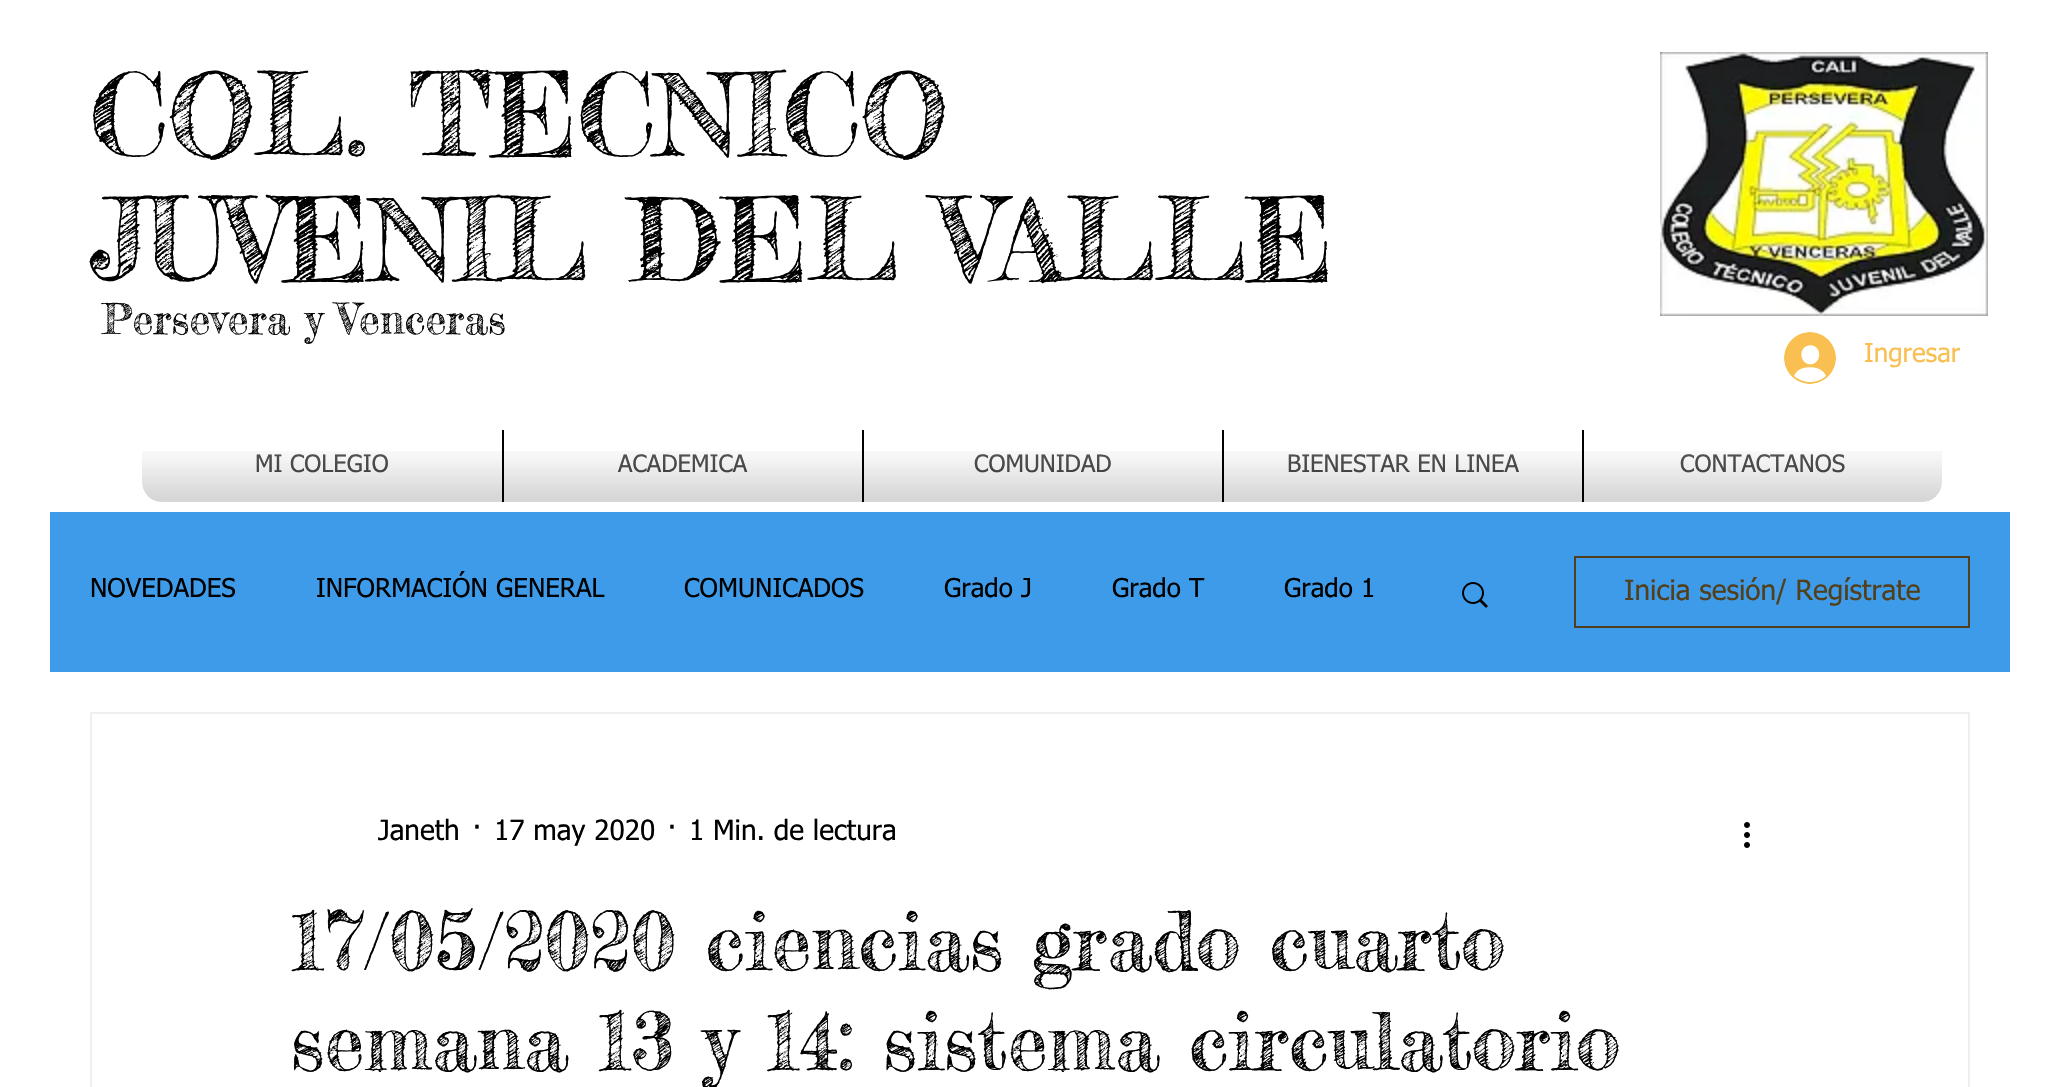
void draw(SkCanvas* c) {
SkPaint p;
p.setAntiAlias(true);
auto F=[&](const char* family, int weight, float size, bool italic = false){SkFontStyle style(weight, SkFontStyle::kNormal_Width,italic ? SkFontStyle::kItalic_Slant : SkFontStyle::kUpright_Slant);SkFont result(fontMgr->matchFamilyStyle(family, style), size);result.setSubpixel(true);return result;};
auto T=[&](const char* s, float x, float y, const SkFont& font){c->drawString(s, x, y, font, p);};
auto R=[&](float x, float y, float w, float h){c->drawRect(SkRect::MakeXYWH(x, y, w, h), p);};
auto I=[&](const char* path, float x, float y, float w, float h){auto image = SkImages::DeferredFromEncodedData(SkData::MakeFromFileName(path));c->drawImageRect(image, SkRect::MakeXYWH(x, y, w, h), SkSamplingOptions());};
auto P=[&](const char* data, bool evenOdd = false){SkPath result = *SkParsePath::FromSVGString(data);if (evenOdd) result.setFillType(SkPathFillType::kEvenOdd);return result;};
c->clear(0xffffffff);
auto f1 = F("Fredericka the Great",400,114);
p.setColor(0xff000000);
T("COL. TECNICO",90,156,f1);
T("JUVENIL DEL VALLE",90,281,f1);
I("1.png",1660,52,328,264);
auto f2 = F("Fredericka the Great",400,42);
T("Persevera y Venceras",102,334,f2);
I("2.png",1784,332,52,52);
auto f3 = F("tahoma",400,26);
p.setColor(0xfff9bf51);
T("Ingresar",1864,362,f3);
I("3.png",142,482,1800,20);
p.setColor(0xffffffff);
c->drawPath(P("M162 430h340v72h-340c-11 0-20-9-20-20v-32c0-11 9-20 20-20z"),p);
auto f4 = F("tahoma",400,24);
p.setColor(0xff383838);
T("MI COLEGIO",255,472,f4);
I("4.png",257,454,131,19);
I("5.png",142,451,360,51);
p.setColor(0xffffffff);
R(504,482,358,20);
p.setColor(0xff000000);
R(502,430,2,72);
p.setColor(0xff383838);
T("ACADEMICA",618,472,f4);
I("6.png",618,454,130,19);
I("7.png",504,451,358,51);
p.setColor(0xffffffff);
R(864,482,358,20);
p.setColor(0xff000000);
R(862,430,2,72);
p.setColor(0xff383838);
T("COMUNIDAD",974,472,f4);
I("8.png",975,454,136,19);
I("9.png",864,451,358,51);
p.setColor(0xffffffff);
R(1224,482,358,20);
p.setColor(0xff000000);
R(1222,430,2,72);
p.setColor(0xff383838);
T("BIENESTAR EN LINEA",1287,472,f4);
I("10.png",1288,454,231,19);
I("11.png",1224,451,358,51);
p.setColor(0xffffffff);
c->drawPath(P("M1582 430h340c11 0 20 9 20 20v32c0 11-9 20-20 20h-340z"),p);
p.setColor(0xff000000);
R(1582,430,2,72);
p.setColor(0xff383838);
T("CONTACTANOS",1680,472,f4);
I("12.png",1681,454,164,19);
I("13.png",1584,451,358,51);
p.setColor(0xff3d9be9);
R(50,512,1960,160);
p.setColor(0xff000000);
T("NOVEDADES",90,597,f3);
T("INFORMACIÓN GENERAL",316,597,f3);
T("COMUNICADOS",684,597,f3);
T("Grado J",944,597,f3);
T("Grado T",1112,597,f3);
T("Grado 1",1284,597,f3);
I("14.png",1462,582,26,26);
p.setStroke(true);
p.setStrokeWidth(2);
p.setColor(0xff523f1b);
c->drawRect(SkRect::MakeXYWH(1575,557,394,70),p);
auto f5 = F("tahoma",400,28);
p.setStroke(false);
T("Inicia sesión/ Regístrate",1624,600,f5);
p.setStroke(true);
p.setColor(0xffefefef);
c->drawRect(SkRect::MakeXYWH(91,713,1878,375),p);
p.setStroke(false);
p.setColor(0xff000000);
T("Janeth",378,840,f5);
T("·",472,840,f5);
T("17 may 2020",494,840,f5);
T("·",667,840,f5);
T("1 Min. de lectura",689,840,f5);
I("15.png",1744,822,6,26);
auto f6 = F("Fredericka the Great",400,80);
T("17/05/2020 ciencias grado cuarto",290,970,f6);
T("semana 13 y 14: sistema circulatorio",290,1070,f6);
}
